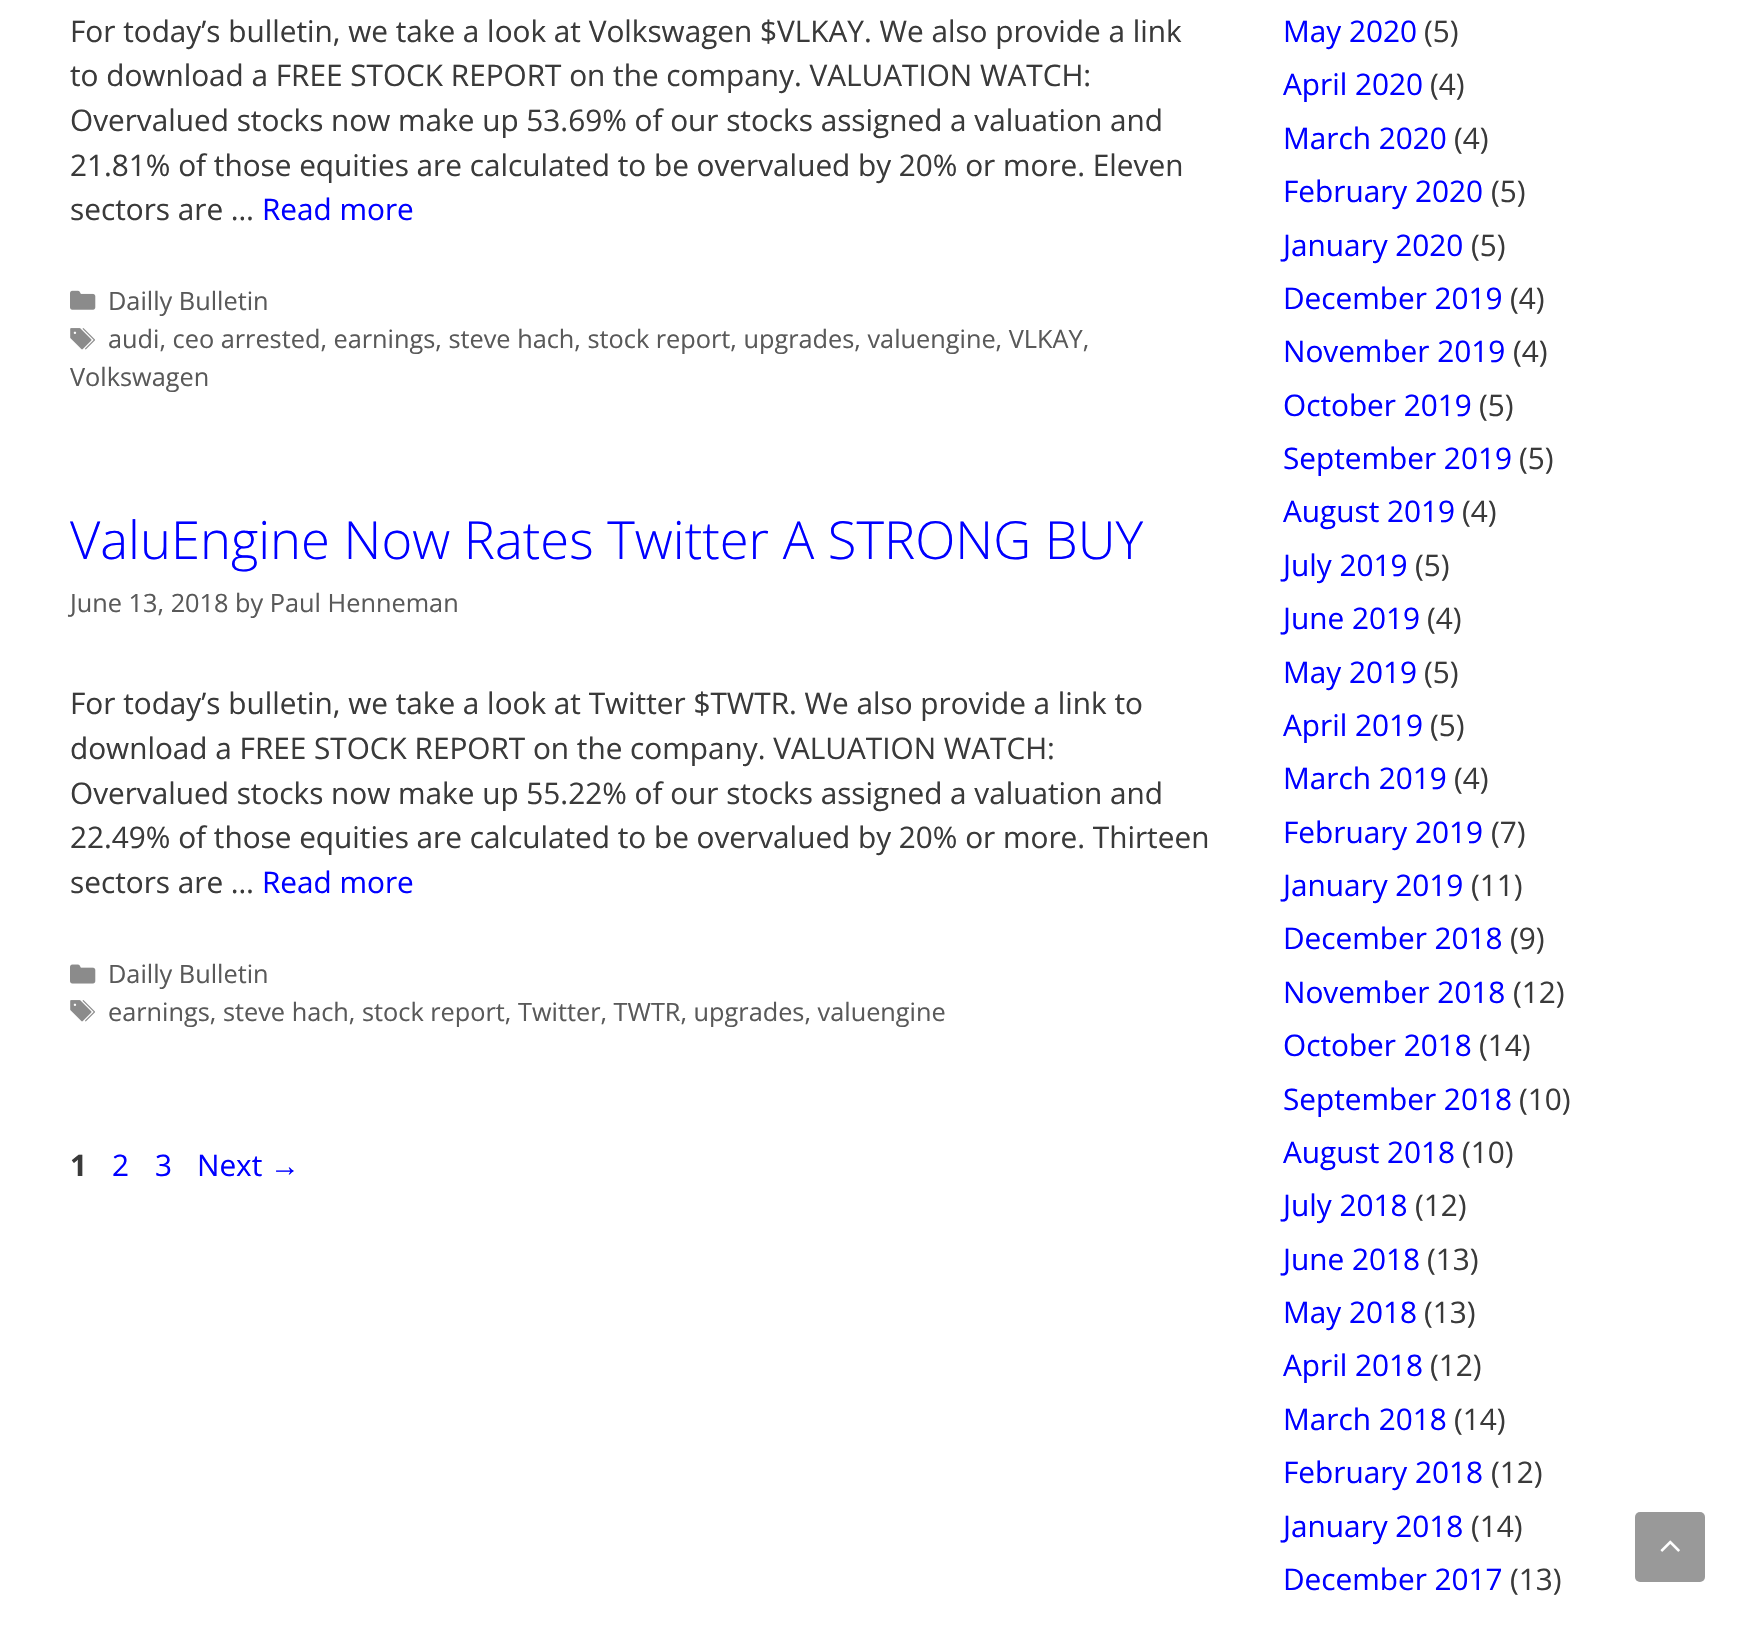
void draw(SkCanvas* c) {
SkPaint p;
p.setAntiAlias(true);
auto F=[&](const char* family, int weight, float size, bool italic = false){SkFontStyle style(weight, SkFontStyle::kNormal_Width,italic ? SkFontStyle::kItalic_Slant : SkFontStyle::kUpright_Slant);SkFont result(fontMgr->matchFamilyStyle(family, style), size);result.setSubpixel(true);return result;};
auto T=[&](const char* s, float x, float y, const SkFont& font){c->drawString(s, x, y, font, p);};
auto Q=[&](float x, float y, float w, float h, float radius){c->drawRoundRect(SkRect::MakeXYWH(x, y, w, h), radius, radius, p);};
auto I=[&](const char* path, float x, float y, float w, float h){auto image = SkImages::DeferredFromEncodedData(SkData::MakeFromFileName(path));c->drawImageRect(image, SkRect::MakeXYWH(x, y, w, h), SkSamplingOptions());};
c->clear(0xffffffff);
auto f1 = F("Open Sans",400,29.75);
p.setColor(0xff3a3a3a);
T("For today’s bulletin, we take a look at Volkswagen $VLKAY. We also provide a link",70,42,f1);
T("to download a FREE STOCK REPORT on the company. VALUATION WATCH:",70,86,f1);
T("Overvalued stocks now make up 53.69% of our stocks assigned a valuation and",70,131,f1);
T("21.81% of those equities are calculated to be overvalued by 20% or more. Eleven",70,176,f1);
T("sectors are …",70,220,f1);
p.setColor(0xff0000ff);
T("Read more",262,220,f1);
I("1.png",70,290,26,20);
auto f2 = F("Open Sans",400,25.3);
p.setColor(0xff595959);
T("Dailly Bulletin",108,310,f2);
I("2.png",70,328,25,22);
T("audi, ceo arrested, earnings, steve hach, stock report, upgrades, valuengine, VLKAY,",108,348,f2);
T("Volkswagen",70,386,f2);
auto f3 = F("Open Sans",300,52.5);
p.setColor(0xff0000ff);
T("ValuEngine Now Rates Twitter A STRONG BUY",70,559,f3);
p.setColor(0xff595959);
T("June 13, 2018 by Paul Henneman",70,612,f2);
p.setColor(0xff3a3a3a);
T("For today’s bulletin, we take a look at Twitter $TWTR. We also provide a link to",70,714,f1);
T("download a FREE STOCK REPORT on the company. VALUATION WATCH:",70,759,f1);
T("Overvalued stocks now make up 55.22% of our stocks assigned a valuation and",70,804,f1);
T("22.49% of those equities are calculated to be overvalued by 20% or more. Thirteen",70,848,f1);
T("sectors are …",70,893,f1);
p.setColor(0xff0000ff);
T("Read more",262,893,f1);
I("3.png",70,964,26,20);
p.setColor(0xff595959);
T("Dailly Bulletin",108,983,f2);
I("2.png",70,1000,25,22);
T("earnings, steve hach, stock report, Twitter, TWTR, upgrades, valuengine",108,1021,f2);
auto f4 = F("Open Sans",700,29.75);
p.setColor(0xff3a3a3a);
T("1",70,1176,f4);
p.setColor(0xff0000ff);
T("2",112,1176,f1);
T("3",155,1176,f1);
T("Next",197,1176,f1);
auto f5 = F("Liberation Sans",400,29.75);
T("→",270,1176,f5);
T("May 2020",1283,42,f1);
p.setColor(0xff3a3a3a);
T("(5)",1424,42,f1);
p.setColor(0xff0000ff);
T("April 2020",1283,95,f1);
p.setColor(0xff3a3a3a);
T("(4)",1430,95,f1);
p.setColor(0xff0000ff);
T("March 2020",1283,149,f1);
p.setColor(0xff3a3a3a);
T("(4)",1454,149,f1);
p.setColor(0xff0000ff);
T("February 2020",1283,202,f1);
p.setColor(0xff3a3a3a);
T("(5)",1491,202,f1);
p.setColor(0xff0000ff);
T("January 2020",1283,256,f1);
p.setColor(0xff3a3a3a);
T("(5)",1471,256,f1);
p.setColor(0xff0000ff);
T("December 2019",1283,309,f1);
p.setColor(0xff3a3a3a);
T("(4)",1510,309,f1);
p.setColor(0xff0000ff);
T("November 2019",1283,362,f1);
p.setColor(0xff3a3a3a);
T("(4)",1513,362,f1);
p.setColor(0xff0000ff);
T("October 2019",1283,416,f1);
p.setColor(0xff3a3a3a);
T("(5)",1479,416,f1);
p.setColor(0xff0000ff);
T("September 2019",1283,469,f1);
p.setColor(0xff3a3a3a);
T("(5)",1519,469,f1);
p.setColor(0xff0000ff);
T("August 2019",1283,522,f1);
p.setColor(0xff3a3a3a);
T("(4)",1462,522,f1);
p.setColor(0xff0000ff);
T("July 2019",1283,576,f1);
p.setColor(0xff3a3a3a);
T("(5)",1415,576,f1);
p.setColor(0xff0000ff);
T("June 2019",1283,629,f1);
p.setColor(0xff3a3a3a);
T("(4)",1427,629,f1);
p.setColor(0xff0000ff);
T("May 2019",1283,683,f1);
p.setColor(0xff3a3a3a);
T("(5)",1424,683,f1);
p.setColor(0xff0000ff);
T("April 2019",1283,736,f1);
p.setColor(0xff3a3a3a);
T("(5)",1430,736,f1);
p.setColor(0xff0000ff);
T("March 2019",1283,789,f1);
p.setColor(0xff3a3a3a);
T("(4)",1454,789,f1);
p.setColor(0xff0000ff);
T("February 2019",1283,843,f1);
p.setColor(0xff3a3a3a);
T("(7)",1491,843,f1);
p.setColor(0xff0000ff);
T("January 2019",1283,896,f1);
p.setColor(0xff3a3a3a);
T("(11)",1471,896,f1);
p.setColor(0xff0000ff);
T("December 2018",1283,949,f1);
p.setColor(0xff3a3a3a);
T("(9)",1510,949,f1);
p.setColor(0xff0000ff);
T("November 2018",1283,1003,f1);
p.setColor(0xff3a3a3a);
T("(12)",1513,1003,f1);
p.setColor(0xff0000ff);
T("October 2018",1283,1056,f1);
p.setColor(0xff3a3a3a);
T("(14)",1479,1056,f1);
p.setColor(0xff0000ff);
T("September 2018",1283,1110,f1);
p.setColor(0xff3a3a3a);
T("(10)",1519,1110,f1);
p.setColor(0xff0000ff);
T("August 2018",1283,1163,f1);
p.setColor(0xff3a3a3a);
T("(10)",1462,1163,f1);
p.setColor(0xff0000ff);
T("July 2018",1283,1216,f1);
p.setColor(0xff3a3a3a);
T("(12)",1415,1216,f1);
p.setColor(0xff0000ff);
T("June 2018",1283,1270,f1);
p.setColor(0xff3a3a3a);
T("(13)",1427,1270,f1);
p.setColor(0xff0000ff);
T("May 2018",1283,1323,f1);
p.setColor(0xff3a3a3a);
T("(13)",1424,1323,f1);
p.setColor(0xff0000ff);
T("April 2018",1283,1376,f1);
p.setColor(0xff3a3a3a);
T("(12)",1430,1376,f1);
p.setColor(0xff0000ff);
T("March 2018",1283,1430,f1);
p.setColor(0xff3a3a3a);
T("(14)",1454,1430,f1);
p.setColor(0xff0000ff);
T("February 2018",1283,1483,f1);
p.setColor(0xff3a3a3a);
T("(12)",1491,1483,f1);
p.setColor(0xff0000ff);
T("January 2018",1283,1537,f1);
p.setColor(0xff3a3a3a);
T("(14)",1471,1537,f1);
p.setColor(0xff0000ff);
T("December 2017",1283,1590,f1);
p.setColor(0xff3a3a3a);
T("(13)",1510,1590,f1);
p.setColor(0xff999999);
Q(1635,1512,70,70,5);
I("4.png",1660,1540,20,12);
}
